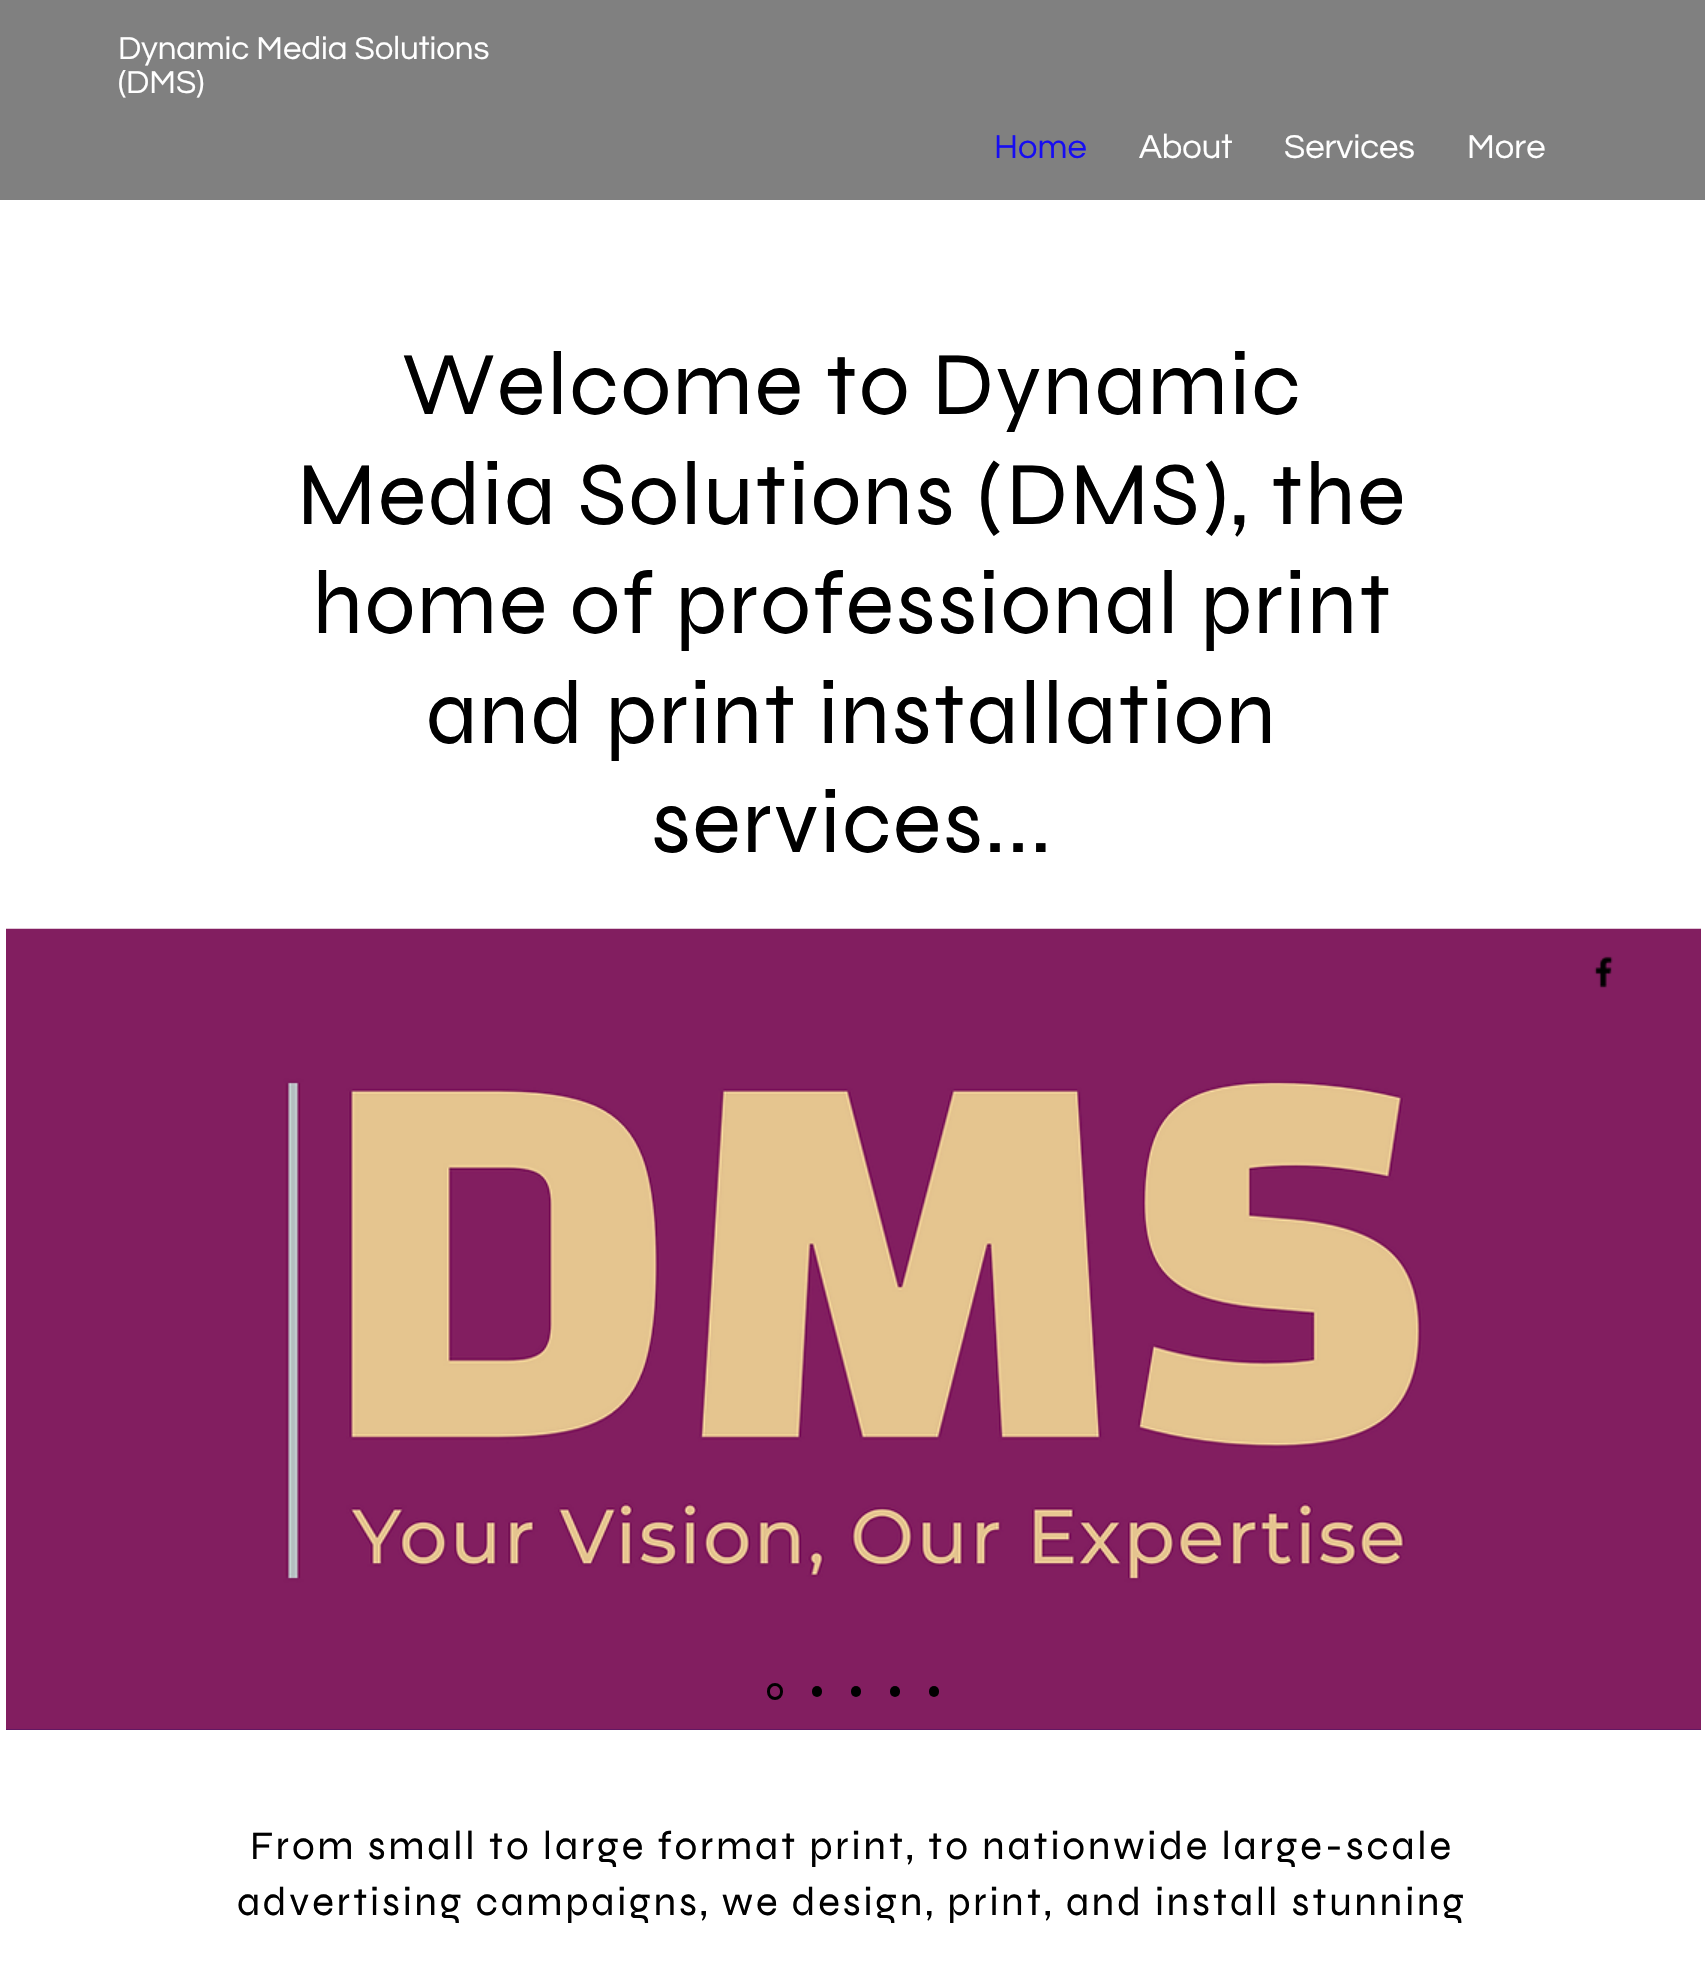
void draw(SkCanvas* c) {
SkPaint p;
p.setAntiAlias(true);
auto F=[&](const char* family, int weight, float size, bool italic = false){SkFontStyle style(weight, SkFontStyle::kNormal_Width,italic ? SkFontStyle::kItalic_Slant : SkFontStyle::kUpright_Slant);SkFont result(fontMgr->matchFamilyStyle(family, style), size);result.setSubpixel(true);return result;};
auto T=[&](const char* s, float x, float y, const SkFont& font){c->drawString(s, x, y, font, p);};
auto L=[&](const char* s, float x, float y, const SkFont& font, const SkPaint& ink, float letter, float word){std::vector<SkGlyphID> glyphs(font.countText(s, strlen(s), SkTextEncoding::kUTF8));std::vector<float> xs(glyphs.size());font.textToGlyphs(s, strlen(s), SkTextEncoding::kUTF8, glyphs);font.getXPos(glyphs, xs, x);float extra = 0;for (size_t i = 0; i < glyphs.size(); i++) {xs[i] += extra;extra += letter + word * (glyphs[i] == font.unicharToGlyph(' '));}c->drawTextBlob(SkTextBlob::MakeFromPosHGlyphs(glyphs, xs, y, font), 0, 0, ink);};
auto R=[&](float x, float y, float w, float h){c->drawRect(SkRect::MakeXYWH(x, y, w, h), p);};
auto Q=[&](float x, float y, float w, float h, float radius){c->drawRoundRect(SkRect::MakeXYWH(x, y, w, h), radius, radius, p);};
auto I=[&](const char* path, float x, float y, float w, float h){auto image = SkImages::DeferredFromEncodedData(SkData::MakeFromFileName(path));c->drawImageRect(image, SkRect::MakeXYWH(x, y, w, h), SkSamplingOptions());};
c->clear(0xffffffff);
p.setColor(0xff808080);
R(0,0,1705,200);
auto f1 = F("Questrial",400,33);
p.setColor(0xffffffff);
T("Dynamic Media Solutions",118,59,f1);
T("(DMS)",118,93,f1);
auto f2 = F("Questrial",400,34.5);
p.setColor(0xff170df2);
T("Home",994,158,f2);
p.setColor(0xffffffff);
T("About",1139,158,f2);
T("Services",1284,158,f2);
T("More",1467,158,f2);
auto f3 = F("Syne",400,90);
p.setColor(0xff000000);
L("Welcome to Dynamic",402,414,f3,p,1.8,0);
L("Media Solutions (DMS), the",297,524,f3,p,1.8,0);
L("home of professional print",312,633,f3,p,1.8,0);
L("and print installation",426,743,f3,p,1.8,0);
L("services...",651,852,f3,p,1.8,0);
p.setColor(0xff561562);
R(6,1729,1695,1);
I("1.png",6,928,1695,802);
p.setStroke(true);
p.setStrokeWidth(3);
p.setColor(0xff000000);
c->drawRoundRect(SkRect::MakeXYWH(768.5,1684.5,13,14),6.5,6.5,p);
p.setStroke(false);
Q(812,1686,10,11,5);
Q(851,1686,10,11,5);
Q(890,1686,10,11,5);
Q(929,1686,10,11,5);
auto f4 = F("Syne",400,40.5);
L("From small to large format print, to nationwide large-scale",250,1859,f4,p,2.83,0);
L("advertising campaigns, we design, print, and install stunning",237,1915,f4,p,2.83,0);
I("2.png",1594,956,19,32);
}
